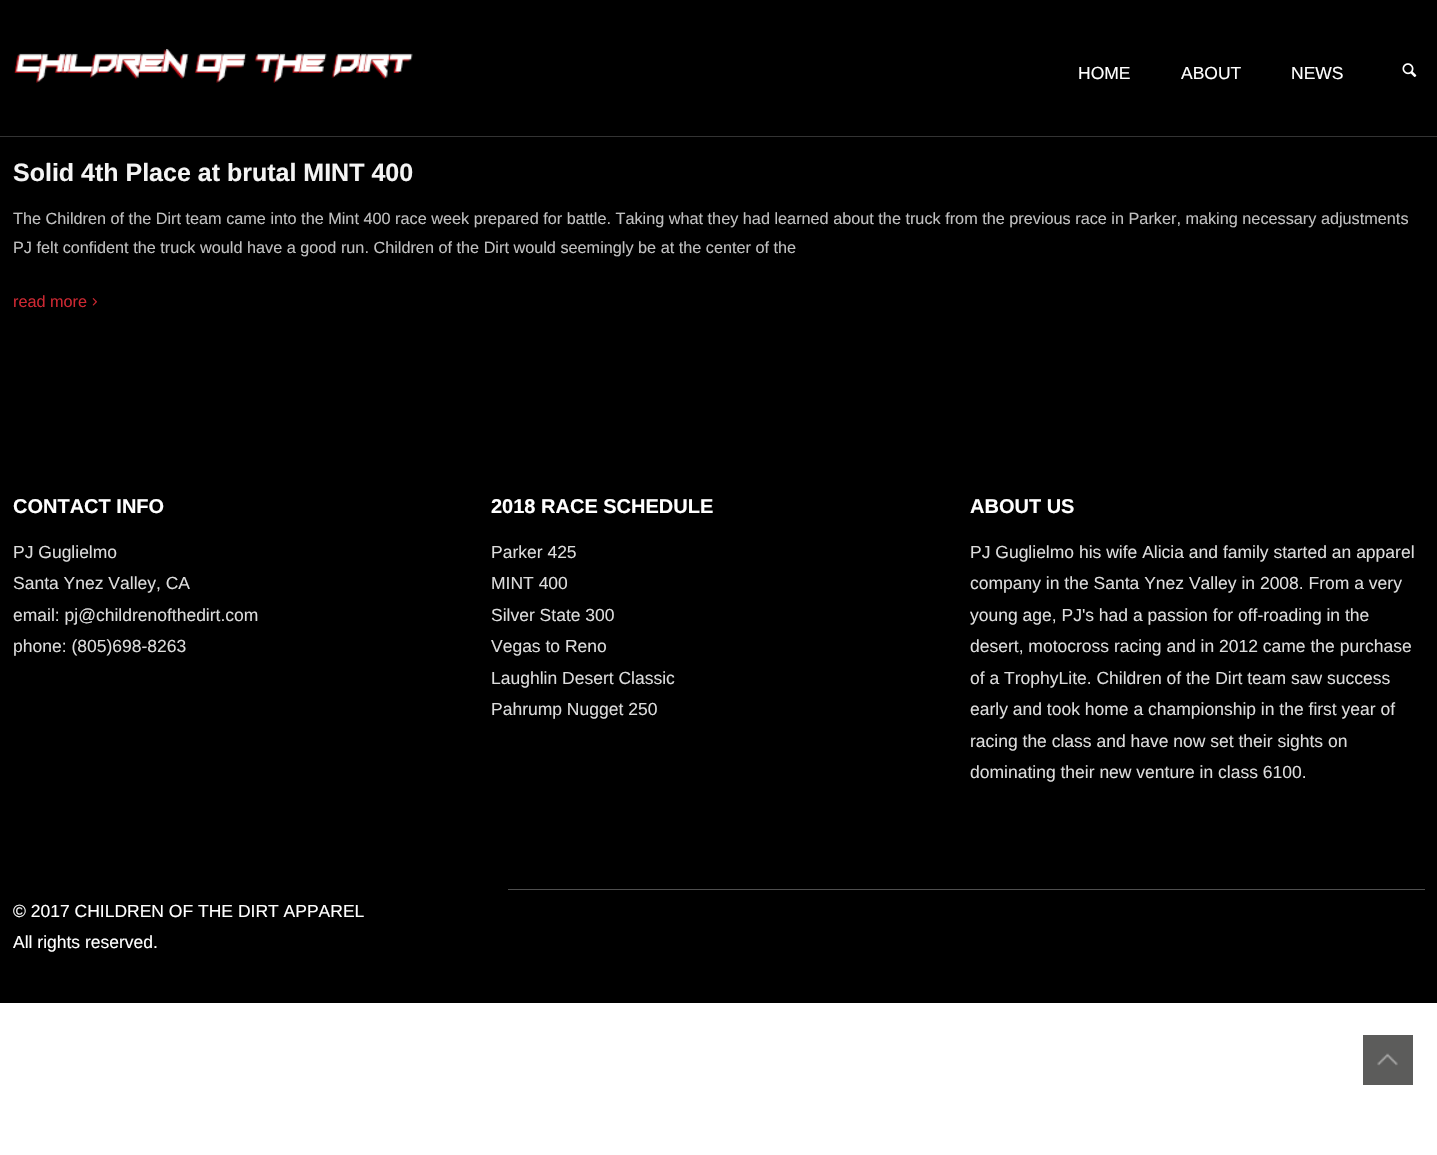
void draw(SkCanvas* c) {
SkPaint p;
p.setAntiAlias(true);
auto F=[&](const char* family, int weight, float size, bool italic = false){SkFontStyle style(weight, SkFontStyle::kNormal_Width,italic ? SkFontStyle::kItalic_Slant : SkFontStyle::kUpright_Slant);SkFont result(fontMgr->matchFamilyStyle(family, style), size);result.setSubpixel(true);return result;};
auto T=[&](const char* s, float x, float y, const SkFont& font){c->drawString(s, x, y, font, p);};
auto R=[&](float x, float y, float w, float h){c->drawRect(SkRect::MakeXYWH(x, y, w, h), p);};
auto I=[&](const char* path, float x, float y, float w, float h){auto image = SkImages::DeferredFromEncodedData(SkData::MakeFromFileName(path));c->drawImageRect(image, SkRect::MakeXYWH(x, y, w, h), SkSamplingOptions());};
c->clear(0xffffffff);
p.setColor(0xff000000);
R(0,0,1437,1003);
p.setColor(0xff333333);
R(0,136,1437,1);
I("1.png",13,49,400,34);
auto f1 = F("Liberation Sans",400,17.5);
p.setColor(0xffffffff);
T("HOME",1078,79,f1);
T("ABOUT",1181,79,f1);
T("NEWS",1291,79,f1);
I("2.png",1402,63,15,14);
auto f2 = F("Liberation Sans",700,25);
p.setColor(0xfff4f4f4);
T("Solid 4th Place at brutal MINT 400",13,181,f2);
auto f3 = F("Liberation Sans",400,16.25);
p.setColor(0xffc0c0c0);
T("The Children of the Dirt team came into the Mint 400 race week prepared for battle. Taking what they had learned about the truck from the previous race in Parker, making necessary adjustments",13,224,f3);
T("PJ felt confident the truck would have a good run. Children of the Dirt would seemingly be at the center of the",13,253,f3);
p.setColor(0xffcd2832);
T("read more",13,307,f3);
I("3.png",92,298,5,8);
auto f4 = F("Liberation Sans",700,20);
p.setColor(0xffffffff);
T("CONTACT INFO",13,513,f4);
p.setColor(0xffdcdcdc);
T("PJ Guglielmo",13,558,f1);
T("Santa Ynez Valley, CA",13,589,f1);
T("email: pj@childrenofthedirt.com",13,621,f1);
T("phone: (805)698-8263",13,652,f1);
p.setColor(0xffffffff);
T("2018 RACE SCHEDULE",491,513,f4);
p.setColor(0xffdcdcdc);
T("Parker 425",491,558,f1);
T("MINT 400",491,589,f1);
T("Silver State 300",491,621,f1);
T("Vegas to Reno",491,652,f1);
T("Laughlin Desert Classic",491,684,f1);
T("Pahrump Nugget 250",491,715,f1);
p.setColor(0xffffffff);
T("ABOUT US",970,513,f4);
p.setColor(0xffdcdcdc);
T("PJ Guglielmo his wife Alicia and family started an apparel",970,558,f1);
T("company in the Santa Ynez Valley in 2008. From a very",970,589,f1);
T("young age, PJ's had a passion for off-roading in the",970,621,f1);
T("desert, motocross racing and in 2012 came the purchase",970,652,f1);
T("of a TrophyLite. Children of the Dirt team saw success",970,684,f1);
T("early and took home a championship in the first year of",970,715,f1);
T("racing the class and have now set their sights on",970,747,f1);
T("dominating their new venture in class 6100.",970,778,f1);
p.setColor(0xff4f4f4f);
R(508,889,917,1);
p.setColor(0xffffffff);
T("© 2017 CHILDREN OF THE DIRT APPAREL",13,917,f1);
T("All rights reserved.",13,948,f1);
p.setColor(0xff5c5c5b);
R(1363,1035,50,50);
I("4.png",1377,1053,21,13);
}
